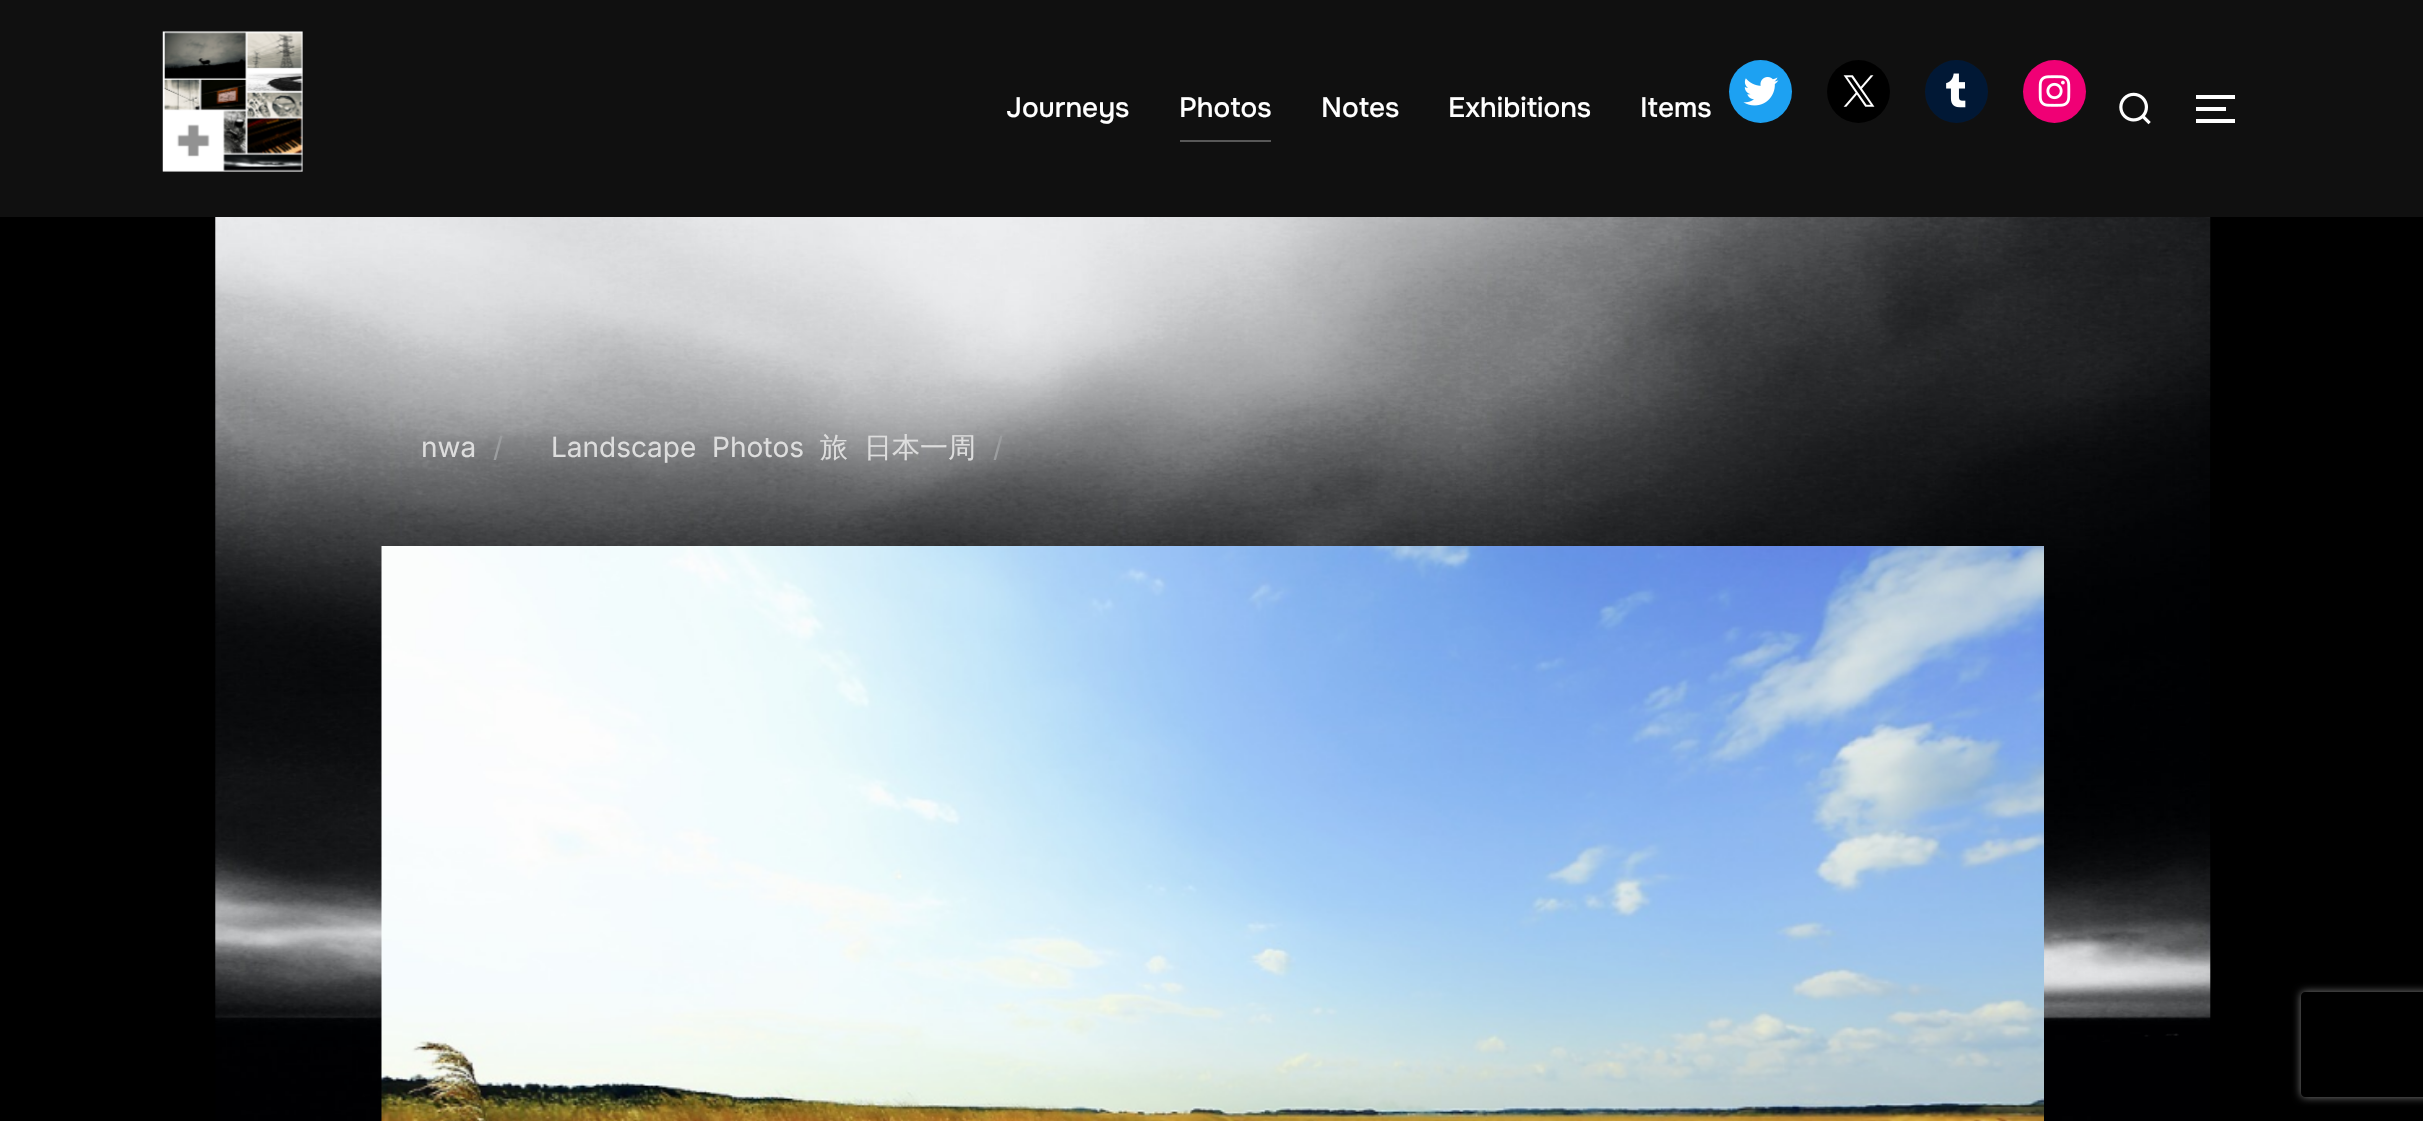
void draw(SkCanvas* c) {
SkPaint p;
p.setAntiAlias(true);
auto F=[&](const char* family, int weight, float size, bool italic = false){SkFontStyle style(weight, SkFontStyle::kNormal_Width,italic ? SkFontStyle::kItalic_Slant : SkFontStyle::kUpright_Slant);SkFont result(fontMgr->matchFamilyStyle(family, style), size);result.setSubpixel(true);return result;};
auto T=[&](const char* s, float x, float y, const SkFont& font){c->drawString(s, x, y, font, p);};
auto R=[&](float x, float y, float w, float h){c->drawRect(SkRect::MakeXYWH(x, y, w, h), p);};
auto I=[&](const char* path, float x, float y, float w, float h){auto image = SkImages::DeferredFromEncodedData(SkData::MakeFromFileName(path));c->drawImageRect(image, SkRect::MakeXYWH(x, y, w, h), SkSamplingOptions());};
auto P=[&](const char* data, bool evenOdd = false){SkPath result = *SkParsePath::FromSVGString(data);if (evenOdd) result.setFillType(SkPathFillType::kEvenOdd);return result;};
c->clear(0xff000000);
I("1.png",215,217,1996,904);
p.setColor(0xff101010);
R(0,0,2423,217);
I("2.png",162,31,141,141);
auto f1 = F("Onest",500,28);
p.setColor(0xffffffff);
T("Journeys",1006,117,f1);
p.setColor(0xff585858);
R(1180,140,91,2);
p.setColor(0xffffffff);
T("Photos",1179,117,f1);
T("Notes",1321,117,f1);
T("Exhibitions",1448,117,f1);
T("Items",1640,117,f1);
p.setColor(0xff1da1f2);
c->drawCircle(1760.5,91.5,31.5,p);
I("3.png",1743,77,36,29);
p.setColor(0xff000000);
c->drawCircle(1858.5,91.5,31.5,p);
I("4.png",1843,75,32,32);
p.setColor(0xff011835);
c->drawCircle(1956.5,91.5,31.5,p);
I("5.png",1946,73,20,35);
p.setColor(0xfff00075);
c->drawCircle(2054.5,91.5,31.5,p);
I("6.png",2038,75,33,32);
I("7.png",2119,92,32,33);
p.setColor(0xffffffff);
R(2196,95,39,4);
R(2196,107,30,4);
R(2196,119,39,4);
auto f2 = F("Inter",400,28);
p.setColor(0xffdddddd);
T("nwa",421,457,f2);
p.setColor(0xff9b9d9f);
T("/",493,457,f2);
p.setColor(0xffdddddd);
T("Landscape",551,457,f2);
T("Photos",712,457,f2);
auto f3 = F("WenQuanYi Zen Hei",500,28);
T("旅",820,457,f3);
T("日本一周",864,457,f3);
p.setColor(0xff9b9d9f);
T("/",993,457,f2);
I("8.png",381,546,1663,575);
c->save();
c->clipPath(P("M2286 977h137v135h-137zm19 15h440c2 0 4 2 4 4v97c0 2-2 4-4 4h-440c-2 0-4-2-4-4v-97c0-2 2-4 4-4z",true),true);
p.setColor(0xff808080);
p.setMaskFilter(SkMaskFilter::MakeBlur(kNormal_SkBlurStyle, 4.5));
c->drawRoundRect(SkRect::MakeXYWH(2301,992,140,105),4,4,p);
p.setMaskFilter(nullptr);
c->restore();
}
